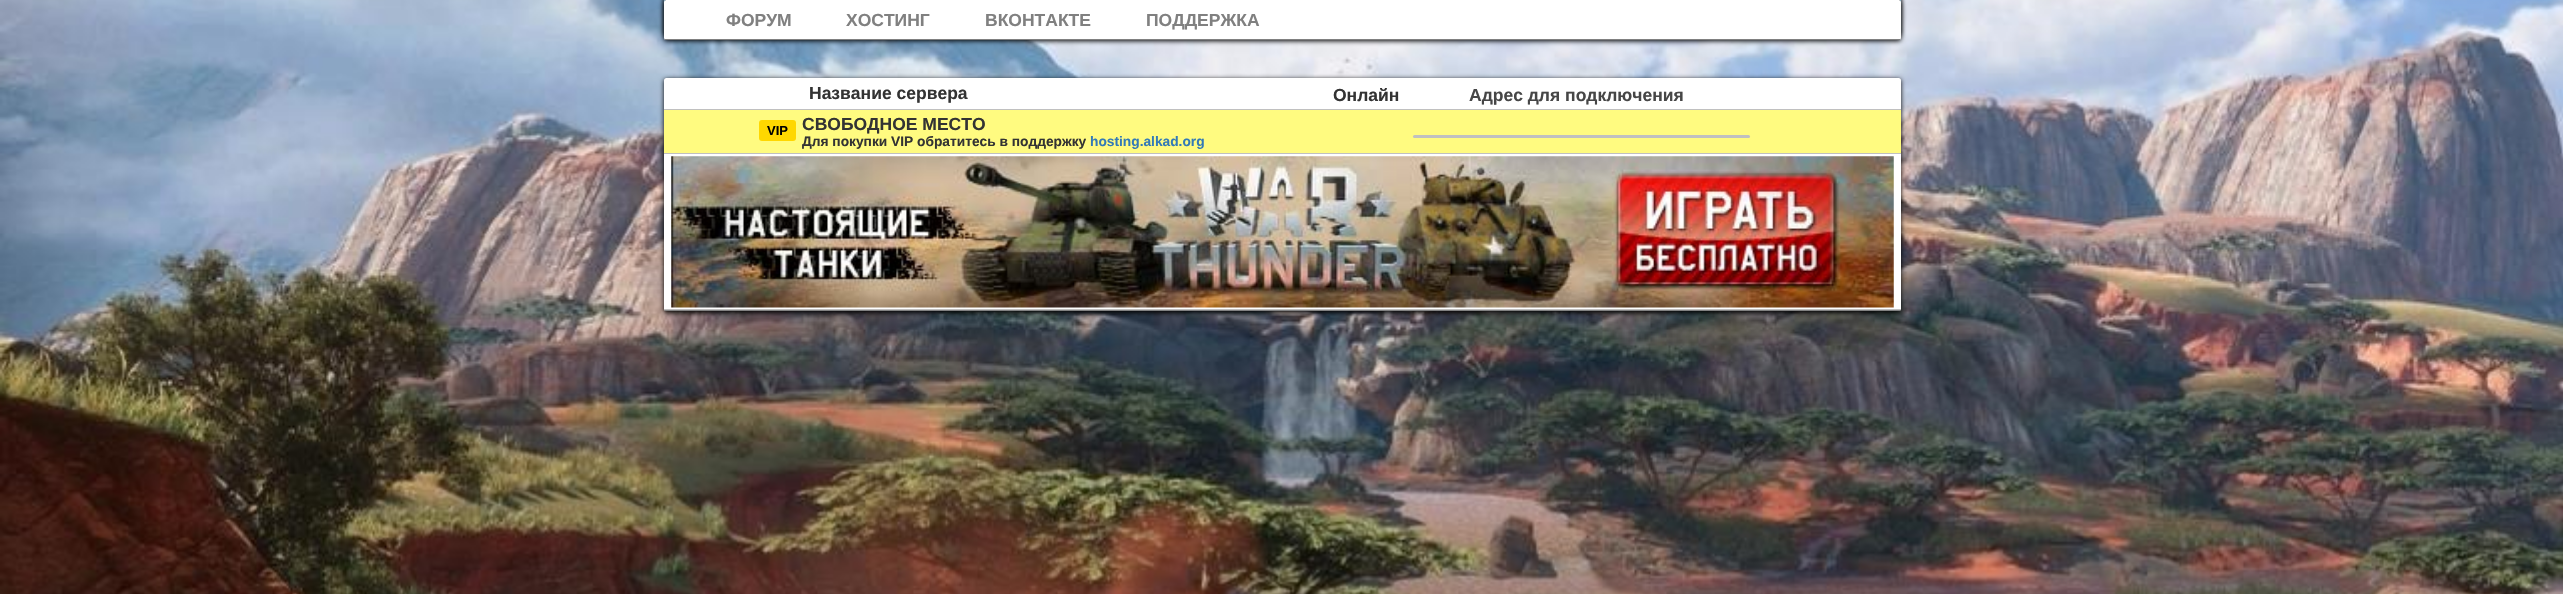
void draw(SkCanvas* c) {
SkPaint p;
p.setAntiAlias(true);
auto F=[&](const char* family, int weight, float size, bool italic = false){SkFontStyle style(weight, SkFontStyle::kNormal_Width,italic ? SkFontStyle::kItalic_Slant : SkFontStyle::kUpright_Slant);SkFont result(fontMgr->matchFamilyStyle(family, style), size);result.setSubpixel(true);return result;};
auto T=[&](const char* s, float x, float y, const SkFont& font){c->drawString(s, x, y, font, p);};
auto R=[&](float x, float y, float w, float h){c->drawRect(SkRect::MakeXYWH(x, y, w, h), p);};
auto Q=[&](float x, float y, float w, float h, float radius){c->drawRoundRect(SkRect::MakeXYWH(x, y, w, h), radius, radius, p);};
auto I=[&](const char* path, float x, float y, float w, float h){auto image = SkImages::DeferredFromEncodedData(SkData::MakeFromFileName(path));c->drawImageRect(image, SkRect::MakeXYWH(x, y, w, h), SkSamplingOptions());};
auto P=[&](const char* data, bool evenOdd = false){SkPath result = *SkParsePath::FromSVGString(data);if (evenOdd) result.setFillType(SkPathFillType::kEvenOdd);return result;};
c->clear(0xffffffff);
I("1.png",0,0,2563,594);
p.setColor(0xff000000);
p.setMaskFilter(SkMaskFilter::MakeBlur(kNormal_SkBlurStyle, 2.5));
c->drawRoundRect(SkRect::MakeXYWH(664,-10,1237,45),2.5,2.5,p);
p.setMaskFilter(nullptr);
p.setStroke(true);
p.setStrokeWidth(1.2);
p.setColor(0xff9acfea);
c->drawPath(P("M665 32.5l-.5-1v-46l1.5-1h1233l1.5 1v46l-.5 1"),p);
p.setStroke(false);
p.setColor(0xff000000);
p.setMaskFilter(SkMaskFilter::MakeBlur(kNormal_SkBlurStyle, 2.5));
c->drawRoundRect(SkRect::MakeXYWH(664,1,1237,40),2.5,2.5,p);
p.setMaskFilter(nullptr);
p.setColor(0xffffffff);
Q(664,0,1237,40,2.5);
p.setColor(0xff808080);
R(665,39,1235,1);
auto f1 = F("Liberation Sans",700,17.5);
T("ФОРУМ",726,26,f1);
T("ХОСТИНГ",846,26,f1);
T("ВКОНТАКТЕ",985,26,f1);
T("ПОДДЕРЖКА",1146,26,f1);
p.setColor(0xff000000);
p.setMaskFilter(SkMaskFilter::MakeBlur(kNormal_SkBlurStyle, 2.5));
c->drawRoundRect(SkRect::MakeXYWH(664,79,1237,234),2.5,2.5,p);
p.setMaskFilter(nullptr);
p.setColor(0xffffffff);
Q(664,78,1237,233,2.5);
p.setColor(0xff808080);
R(665,310,1235,1);
p.setColor(0xffc0c0c0);
R(664,109,1237,1);
p.setColor(0xff333333);
T("Название сервера",809,99,f1);
T("Онлайн",1333,101,f1);
p.setColor(0xff464646);
T("Адрес для подключения",1469,101,f1);
p.setColor(0xfffffb80);
R(664,110,1237,43);
p.setColor(0xffc0c0c0);
R(664,153,1237,1);
p.setColor(0xffffd700);
Q(759,120,37,21,3);
auto f2 = F("Liberation Sans",700,13);
p.setColor(0xff000000);
T("VIP",767,135,f2);
p.setColor(0xff333333);
T("СВОБОДНОЕ МЕСТО",802,130,f1);
auto f3 = F("Liberation Sans",700,13.75);
T("Для покупки VIP обратитесь в поддержку",802,146,f3);
p.setColor(0xff337ab7);
T("hosting.alkad.org",1090,146,f3);
p.setColor(0xffc0c0c0);
Q(1413,135,337,3,1.5);
R(664,309,1237,1);
I("2.png",671,156,1223,152);
}
